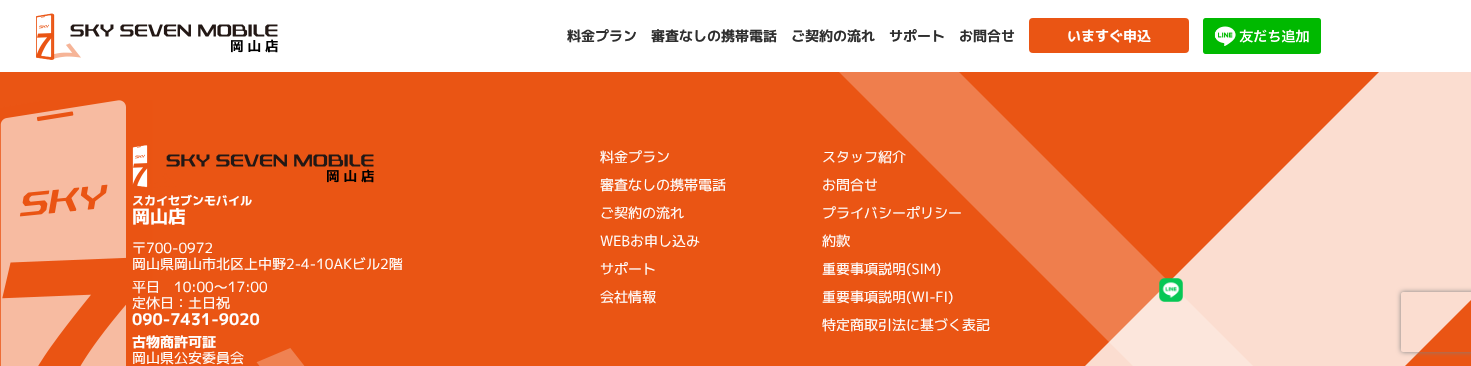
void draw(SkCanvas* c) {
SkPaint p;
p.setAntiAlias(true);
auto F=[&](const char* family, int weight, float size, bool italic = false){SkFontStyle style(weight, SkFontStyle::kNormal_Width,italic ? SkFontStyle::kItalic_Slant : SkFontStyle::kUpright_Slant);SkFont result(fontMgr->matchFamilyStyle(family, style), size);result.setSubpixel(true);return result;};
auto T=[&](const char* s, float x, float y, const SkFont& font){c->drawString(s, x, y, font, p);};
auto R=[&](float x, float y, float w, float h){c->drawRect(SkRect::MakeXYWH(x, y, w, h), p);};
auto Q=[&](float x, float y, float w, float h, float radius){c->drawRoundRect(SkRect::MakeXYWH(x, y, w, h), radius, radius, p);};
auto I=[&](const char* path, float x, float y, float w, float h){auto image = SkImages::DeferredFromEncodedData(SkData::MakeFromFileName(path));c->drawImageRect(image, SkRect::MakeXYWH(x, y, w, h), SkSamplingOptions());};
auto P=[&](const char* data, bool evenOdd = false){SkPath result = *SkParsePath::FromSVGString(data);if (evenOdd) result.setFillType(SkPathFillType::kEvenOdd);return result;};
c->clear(0xffea5514);
p.setColor(0xffef7e4d);
c->drawPath(P("M826 59h120l462 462h-120z"),p);
p.setColor(0xccffffff);
c->drawPath(P("M1392 59h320l-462 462h-320z"),p);
p.setColor(0xffffffff);
R(0,0,1471,72);
I("1.png",36,13,242,47);
auto f1 = F("M PLUS 1p",700,14);
p.setColor(0xff2f2f2f);
T("料金プラン",567,41,f1);
T("審査なしの携帯電話",651,41,f1);
T("ご契約の流れ",791,41,f1);
T("サポート",889,41,f1);
T("お問合せ",959,41,f1);
p.setColor(0xffea5514);
Q(1029,18,160,35,4);
p.setColor(0xffffffff);
T("いますぐ申込",1067,41,f1);
I("2.png",1203,18,118,36);
I("3.png",0,100,305,266);
auto f2 = F("M PLUS 1p",400,14);
T("料金プラン",600,162,f2);
T("審査なしの携帯電話",600,190,f2);
T("ご契約の流れ",600,218,f2);
T("WEBお申し込み",600,246,f2);
T("サポート",600,274,f2);
T("会社情報",600,302,f2);
T("スタッフ紹介",822,162,f2);
T("お問合せ",822,190,f2);
T("プライバシーポリシー",822,218,f2);
T("約款",822,246,f2);
T("重要事項説明(SIM)",822,274,f2);
T("重要事項説明(WI-FI)",822,302,f2);
T("特定商取引法に基づく表記",822,330,f2);
I("4.png",132,145,242,43);
auto f3 = F("M PLUS 1p",700,12);
T("スカイセブンモバイル",132,205,f3);
auto f4 = F("M PLUS 1p",700,18);
T("岡山店",132,223,f4);
T("〒700-0972",132,253,f2);
T("岡山県岡山市北区上中野2-4-10AKビル2階",132,269,f2);
T("平日　10:00〜17:00",132,292,f2);
T("定休日：土日祝",132,308,f2);
auto f5 = F("M PLUS 1p",700,16);
T("090-7431-9020",132,325,f5);
T("古物商許可証",132,347,f1);
T("岡山県公安委員会",132,363,f2);
I("5.png",1159,278,24,24);
c->save();
c->clipPath(P("M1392 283h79v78h-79zm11 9h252c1 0 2 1 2 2v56c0 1-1 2-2 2h-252c-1 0-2-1-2-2v-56c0-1 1-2 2-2z",true),true);
p.setColor(0xff808080);
p.setMaskFilter(SkMaskFilter::MakeBlur(kNormal_SkBlurStyle, 2.5));
c->drawRoundRect(SkRect::MakeXYWH(1401,292,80,60),2,2,p);
p.setMaskFilter(nullptr);
c->restore();
}
